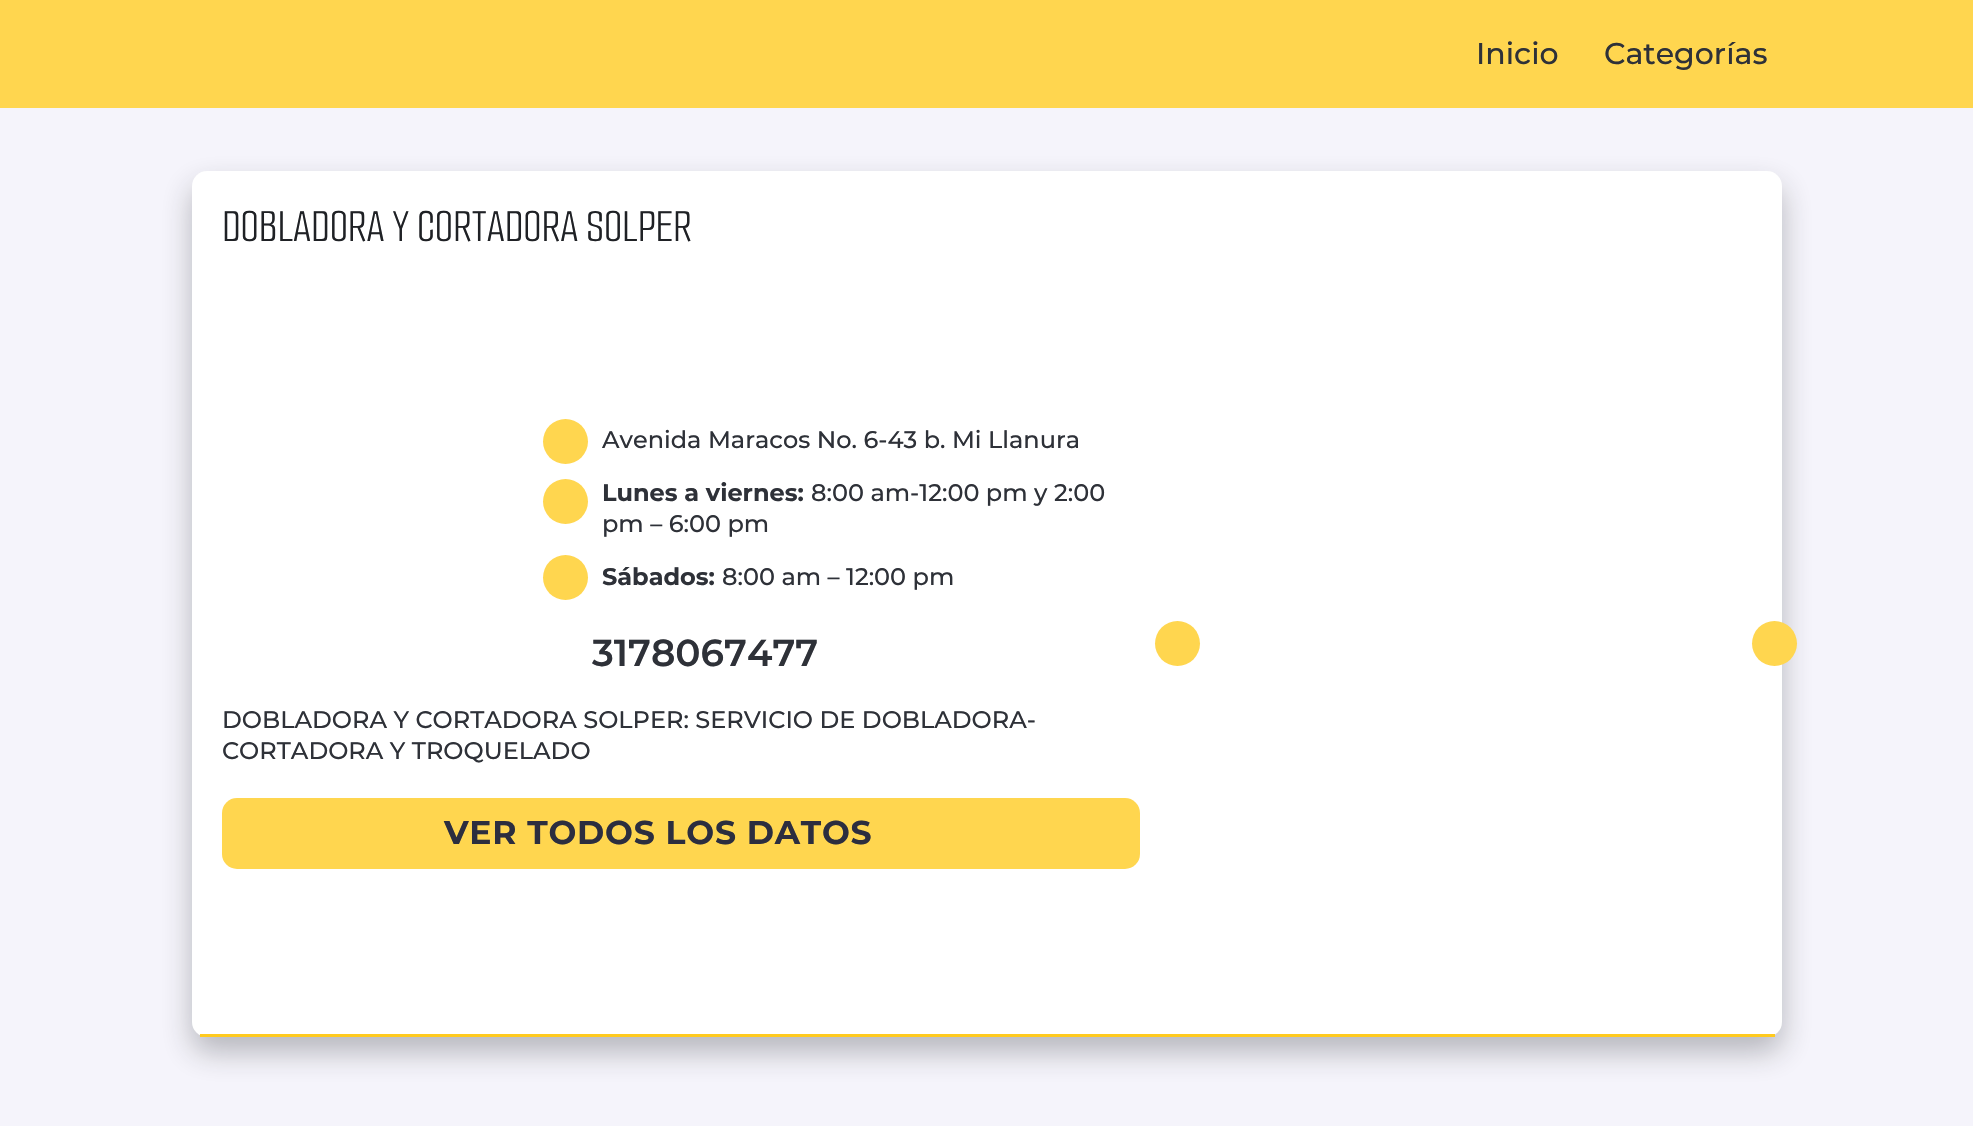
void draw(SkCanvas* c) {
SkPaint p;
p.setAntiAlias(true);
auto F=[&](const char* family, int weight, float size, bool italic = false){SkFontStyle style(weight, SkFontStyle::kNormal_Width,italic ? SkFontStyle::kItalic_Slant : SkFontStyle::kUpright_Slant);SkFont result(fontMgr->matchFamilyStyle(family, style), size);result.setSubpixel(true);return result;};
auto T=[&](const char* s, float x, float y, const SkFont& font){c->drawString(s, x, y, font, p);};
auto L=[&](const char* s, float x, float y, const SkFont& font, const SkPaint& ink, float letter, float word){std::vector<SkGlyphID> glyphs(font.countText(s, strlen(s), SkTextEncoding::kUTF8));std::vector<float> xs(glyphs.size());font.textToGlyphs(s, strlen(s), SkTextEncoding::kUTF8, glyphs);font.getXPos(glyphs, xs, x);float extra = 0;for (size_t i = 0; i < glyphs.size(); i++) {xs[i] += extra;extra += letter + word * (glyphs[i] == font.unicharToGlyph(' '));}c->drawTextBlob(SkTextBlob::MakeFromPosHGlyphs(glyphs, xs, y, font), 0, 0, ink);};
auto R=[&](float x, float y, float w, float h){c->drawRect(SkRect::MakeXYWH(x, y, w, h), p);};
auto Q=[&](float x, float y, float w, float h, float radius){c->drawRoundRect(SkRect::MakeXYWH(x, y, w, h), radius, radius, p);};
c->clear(0xfff5f4fb);
p.setColor(0xffffd64f);
R(0,0,1973,108);
auto f1 = F("Montserrat",500,30);
p.setColor(0xff2e3138);
T("Inicio",1476,64,f1);
T("Categorías",1604,64,f1);
p.setColor(0x4d202327);
p.setMaskFilter(SkMaskFilter::MakeBlur(kNormal_SkBlurStyle, 15));
c->drawRoundRect(SkRect::MakeXYWH(192,186,1590,866),15,15,p);
p.setMaskFilter(nullptr);
p.setColor(0xffffffff);
Q(192,171,1590,866,15);
p.setColor(0xffffca1e);
R(200,1034,1575,3);
auto f2 = F("Smooch Sans",400,48);
p.setColor(0xff1f2125);
T("DOBLADORA Y CORTADORA SOLPER",222,241,f2);
p.setColor(0xffffd64f);
c->drawCircle(565.5,441.5,22.5,p);
auto f3 = F("Montserrat",500,24);
p.setColor(0xff2e3138);
T("Avenida Maracos No. 6-43 b. Mi Llanura",602,448,f3);
p.setColor(0xffffd64f);
c->drawCircle(565.5,501.5,22.5,p);
auto f4 = F("Montserrat",700,24);
p.setColor(0xff2e3138);
T("Lunes a viernes:",602,501,f4);
T("8:00 am-12:00 pm y 2:00",811,501,f3);
T("pm – 6:00 pm",602,532,f3);
p.setColor(0xffffd64f);
c->drawCircle(565.5,577.5,22.5,p);
p.setColor(0xff2e3138);
T("Sábados:",602,585,f4);
T("8:00 am – 12:00 pm",722,585,f3);
auto f5 = F("Montserrat",600,37.5);
T("3178067477",592,666,f5);
T("DOBLADORA Y CORTADORA SOLPER: SERVICIO DE DOBLADORA-",222,728,f3);
T("CORTADORA Y TROQUELADO",222,759,f3);
p.setColor(0xffffd64f);
Q(222,798,918,71,15);
auto f6 = F("Montserrat",700,33);
p.setColor(0xff2c2e3f);
L("VER TODOS LOS DATOS",444,844,f6,p,.75,0);
p.setColor(0xffffd64f);
c->drawCircle(1177.5,643.5,22.5,p);
c->drawCircle(1774.5,643.5,22.5,p);
}
